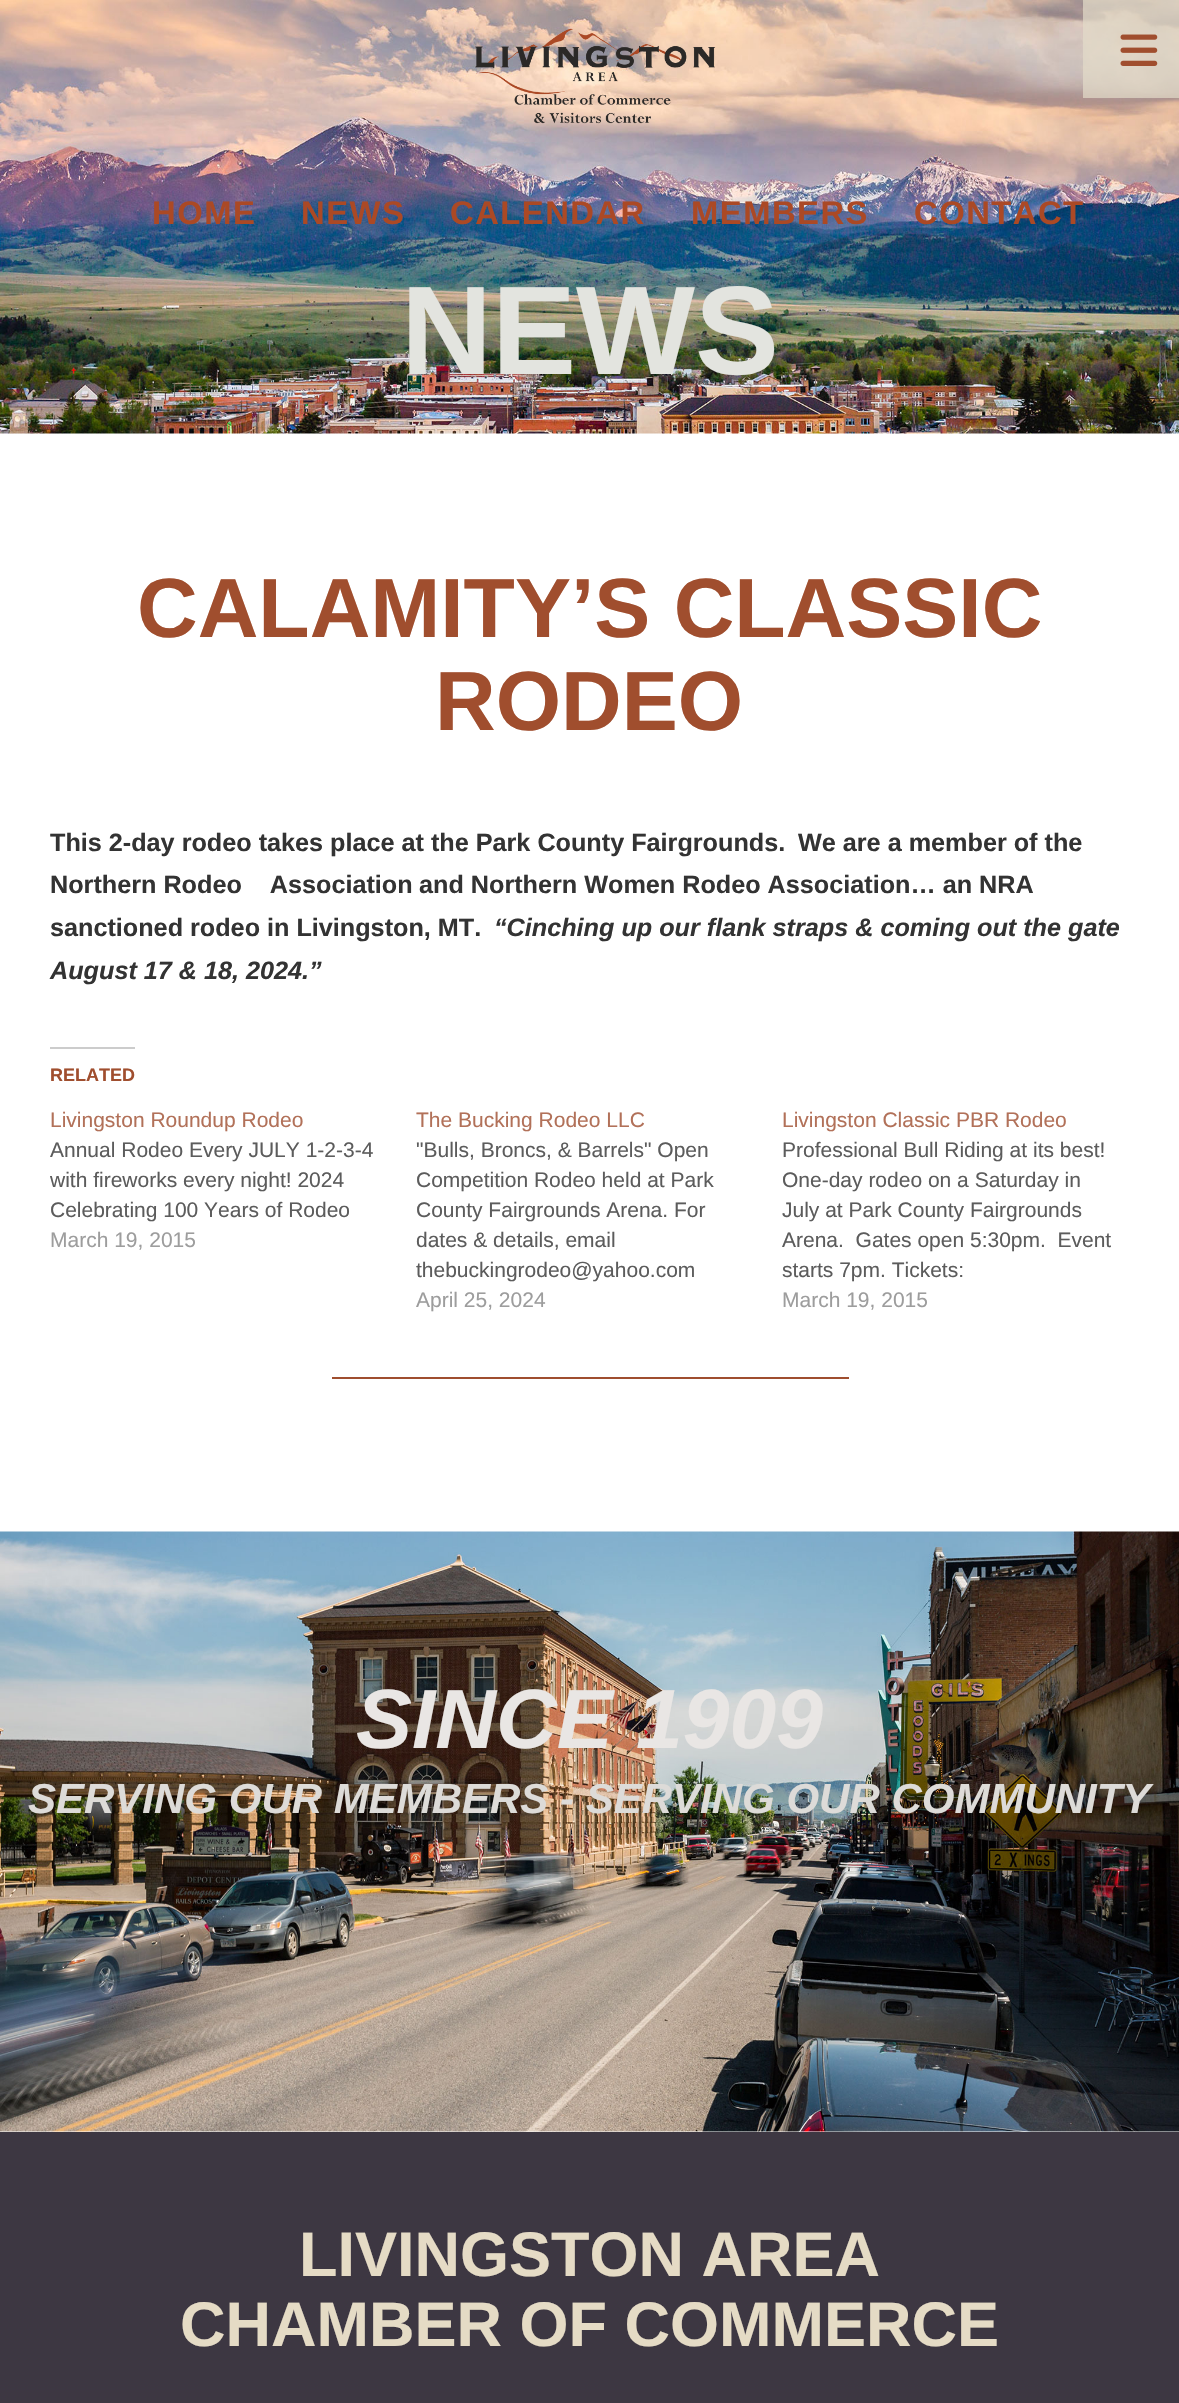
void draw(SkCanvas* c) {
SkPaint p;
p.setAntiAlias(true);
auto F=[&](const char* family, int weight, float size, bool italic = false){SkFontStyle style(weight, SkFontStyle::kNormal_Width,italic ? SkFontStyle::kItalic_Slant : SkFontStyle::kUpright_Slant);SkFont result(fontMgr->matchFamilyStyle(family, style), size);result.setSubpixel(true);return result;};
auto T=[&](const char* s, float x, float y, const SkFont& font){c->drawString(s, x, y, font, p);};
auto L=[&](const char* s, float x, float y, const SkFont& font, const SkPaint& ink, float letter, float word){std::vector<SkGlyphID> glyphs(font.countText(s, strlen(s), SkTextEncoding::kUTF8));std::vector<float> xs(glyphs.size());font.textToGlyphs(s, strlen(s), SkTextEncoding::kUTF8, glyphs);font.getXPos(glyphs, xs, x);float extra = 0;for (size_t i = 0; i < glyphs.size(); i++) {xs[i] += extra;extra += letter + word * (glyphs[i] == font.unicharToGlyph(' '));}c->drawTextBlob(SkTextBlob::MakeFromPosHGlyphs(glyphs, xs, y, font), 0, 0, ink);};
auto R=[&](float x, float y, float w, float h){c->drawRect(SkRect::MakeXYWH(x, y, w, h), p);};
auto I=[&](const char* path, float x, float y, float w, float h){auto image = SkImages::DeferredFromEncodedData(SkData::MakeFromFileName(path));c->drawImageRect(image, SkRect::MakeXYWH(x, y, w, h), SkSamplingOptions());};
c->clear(0xffffffff);
I("1.png",0,0,1179,434);
p.setColor(0xb3e2dbc9);
R(1083,0,96,98);
I("2.png",1120,34,38,32);
I("3.png",475,28,241,96);
auto f1 = F("Liberation Sans",700,32.75);
p.setColor(0xffab4925);
L("HOME",152,224,f1,p,1.5,0);
L("NEWS",301,224,f1,p,1.5,0);
L("CALENDAR",450,224,f1,p,1.5,0);
L("MEMBERS",691,224,f1,p,1.5,0);
L("CONTACT",914,224,f1,p,1.5,0);
auto f2 = F("Liberation Sans",700,126);
p.setColor(0xffe3e4df);
T("NEWS",401,374,f2);
auto f3 = F("Liberation Sans",700,84);
p.setColor(0xffa04e2e);
T("CALAMITY’S CLASSIC",137,637,f3);
T("RODEO",435,730,f3);
auto f4 = F("Liberation Sans",700,25.2);
p.setColor(0xff333333);
T("This 2-day rodeo takes place at the Park County Fairgrounds.",50,851,f4);
T("We are a member of the",798,851,f4);
T("Northern Rodeo    Association",50,893,f4);
T("and Northern Women Rodeo Association… an NRA",419,893,f4);
T("sanctioned rodeo in Livingston, MT.",50,936,f4);
auto f5 = F("Liberation Sans",700,25.2,true);
T("“Cinching up our flank straps & coming out the gate",494,936,f5);
T("August 17 & 18, 2024.”",50,979,f5);
p.setColor(0xffcccccc);
R(50,1047,85,2);
auto f6 = F("Liberation Sans",700,18);
p.setColor(0xffa04e2e);
T("RELATED",50,1081,f6);
auto f7 = F("Liberation Sans",400,21);
p.setColor(0xffb27159);
T("Livingston Roundup Rodeo",50,1127,f7);
p.setColor(0xff5c5c5c);
T("Annual Rodeo Every JULY 1-2-3-4",50,1157,f7);
T("with fireworks every night! 2024",50,1187,f7);
T("Celebrating 100 Years of Rodeo",50,1217,f7);
p.setColor(0xff9d9d9d);
T("March 19, 2015",50,1247,f7);
p.setColor(0xffb27159);
T("The Bucking Rodeo LLC",416,1127,f7);
p.setColor(0xff5c5c5c);
T("\"Bulls, Broncs, & Barrels\" Open",416,1157,f7);
T("Competition Rodeo held at Park",416,1187,f7);
T("County Fairgrounds Arena. For",416,1217,f7);
T("dates & details, email",416,1247,f7);
T("thebuckingrodeo@yahoo.com",416,1277,f7);
p.setColor(0xff9d9d9d);
T("April 25, 2024",416,1307,f7);
p.setColor(0xffb27159);
T("Livingston Classic PBR Rodeo",782,1127,f7);
p.setColor(0xff5c5c5c);
T("Professional Bull Riding at its best!",782,1157,f7);
T("One-day rodeo on a Saturday in",782,1187,f7);
T("July at Park County Fairgrounds",782,1217,f7);
T("Arena.  Gates open 5:30pm.  Event",782,1247,f7);
T("starts 7pm. Tickets:",782,1277,f7);
p.setColor(0xff9d9d9d);
T("March 19, 2015",782,1307,f7);
p.setColor(0xff9f4e2f);
R(332,1377,517,2);
I("4.png",0,1531,1179,601);
auto f8 = F("Liberation Sans",700,84,true);
p.setColor(0xffe9e6e4);
T("SINCE 1909",356,1748,f8);
auto f9 = F("Liberation Sans",700,42,true);
p.setColor(0xffdddbd8);
T("SERVING OUR MEMBERS - SERVING OUR COMMUNITY",28,1813,f9);
p.setColor(0xff3d3742);
R(0,2132,1179,271);
auto f10 = F("Liberation Sans",700,63);
p.setColor(0xffe5dbc5);
T("LIVINGSTON AREA",299,2276,f10);
T("CHAMBER OF COMMERCE",180,2346,f10);
}
